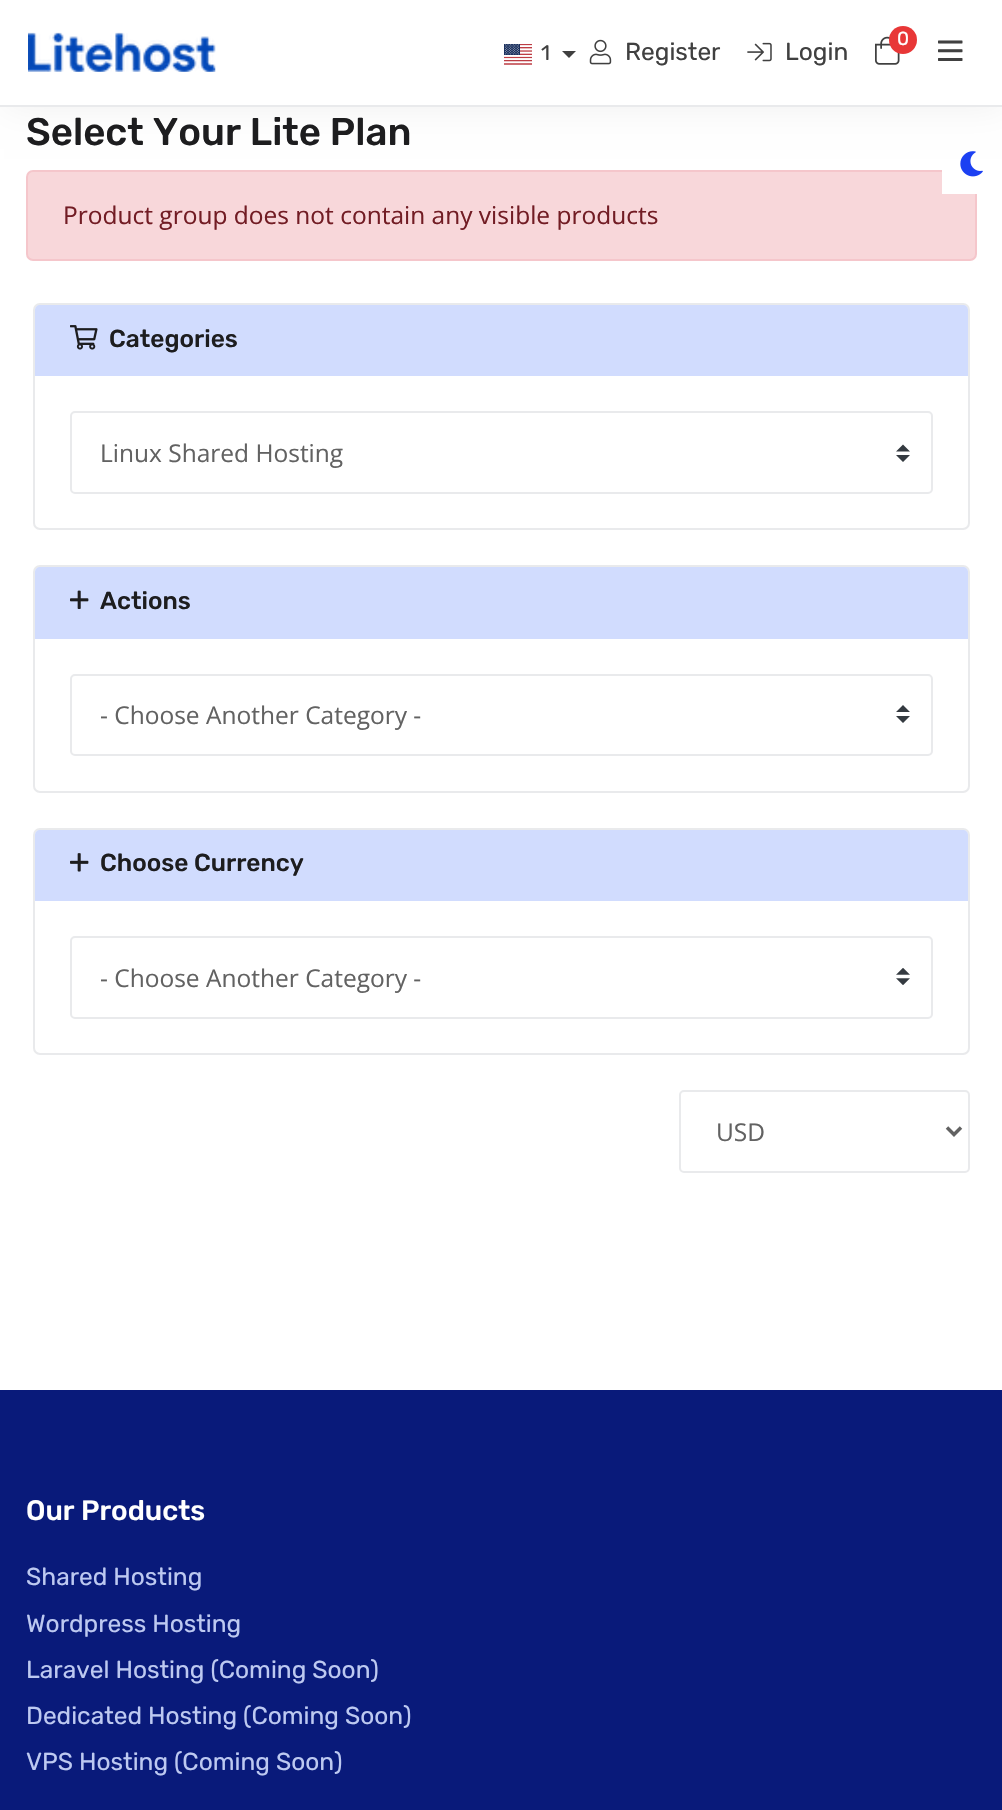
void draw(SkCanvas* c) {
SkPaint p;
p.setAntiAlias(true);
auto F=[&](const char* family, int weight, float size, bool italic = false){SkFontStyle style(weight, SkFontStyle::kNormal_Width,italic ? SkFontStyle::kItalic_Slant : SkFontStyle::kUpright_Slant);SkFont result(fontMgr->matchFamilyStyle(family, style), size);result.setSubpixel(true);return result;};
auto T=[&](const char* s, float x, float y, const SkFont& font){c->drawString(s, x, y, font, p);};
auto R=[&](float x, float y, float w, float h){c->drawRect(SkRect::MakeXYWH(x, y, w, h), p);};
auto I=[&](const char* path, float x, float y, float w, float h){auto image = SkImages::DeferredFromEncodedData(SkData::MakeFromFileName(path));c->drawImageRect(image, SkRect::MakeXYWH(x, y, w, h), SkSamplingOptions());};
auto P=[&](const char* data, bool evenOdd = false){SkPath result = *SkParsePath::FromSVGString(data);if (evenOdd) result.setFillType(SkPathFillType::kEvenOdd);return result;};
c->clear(0xffffffff);
p.setColor(0x0f000000);
p.setMaskFilter(SkMaskFilter::MakeBlur(kNormal_SkBlurStyle, 17.5));
c->drawRect(SkRect::MakeXYWH(4,0,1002,107),p);
p.setMaskFilter(nullptr);
p.setColor(0xffffffff);
R(0,0,1002,105);
p.setColor(0xffe9eaec);
R(0,105,1002,2);
I("1.png",28,32,188,40);
I("2.png",875,36,25,29);
p.setColor(0xffe83737);
c->drawCircle(903,40,14,p);
auto f1 = F("Rubik",400,19);
p.setColor(0xffffffff);
T("0",897,45,f1);
I("3.png",504,44,28,21);
auto f2 = F("Rubik",400,21);
p.setColor(0xff404040);
T("1",541,60,f2);
c->drawPath(P("M562 51h14l-7 7z"),p);
I("4.png",589,39,23,26);
auto f3 = F("Rubik",400,24.5);
T("Register",625,60,f3);
I("5.png",747,42,25,20);
T("Login",785,60,f3);
I("6.png",938,40,25,21);
auto f4 = F("Rubik",500,38.5);
p.setColor(0xff1d1d1f);
T("Select Your Lite Plan",26,145,f4);
p.setColor(0xfff8d7da);
c->drawRoundRect(SkRect::MakeXYWH(27,171,949,89),6,6,p);
p.setStroke(true);
p.setStrokeWidth(2);
p.setColor(0xfff5c6cb);
c->drawRoundRect(SkRect::MakeXYWH(27,171,949,89),6,6,p);
auto f5 = F("Open Sans",400,24.5);
p.setStroke(false);
p.setColor(0xff721c24);
T("Product group does not contain any visible products",63,224,f5);
p.setStroke(true);
p.setColor(0xffe9eaec);
c->drawRoundRect(SkRect::MakeXYWH(34,304,935,225),6,6,p);
p.setStroke(false);
p.setColor(0xffd1dcfe);
c->drawPath(P("M40 305h923c3 0 5 2 5 5v66h-933v-66c0-3 2-5 5-5z"),p);
I("7.png",70,325,28,25);
auto f6 = F("Rubik",500,24.5);
p.setColor(0xff1d1d1f);
T("Categories",109,347,f6);
p.setColor(0xff343a40);
c->drawPath(P("M903 444.5l-7 7h14zm0 17.5l-7-7h14z"),p);
p.setStroke(true);
p.setColor(0xffe9eaec);
c->drawRoundRect(SkRect::MakeXYWH(71,412,861,81),4,4,p);
p.setStroke(false);
p.setColor(0xff626262);
T("Linux Shared Hosting",100,462,f5);
p.setStroke(true);
p.setColor(0xffe9eaec);
c->drawRoundRect(SkRect::MakeXYWH(34,566,935,226),6,6,p);
p.setStroke(false);
p.setColor(0xffd1dcfe);
c->drawPath(P("M40 567h923c3 0 5 2 5 5v67h-933v-67c0-3 2-5 5-5z"),p);
I("8.png",70,590,19,19);
p.setColor(0xff1d1d1f);
T("Actions",100,609,f6);
p.setColor(0xff343a40);
c->drawPath(P("M903 705l-7 7h14zm0 18l-7-7h14z"),p);
p.setStroke(true);
p.setColor(0xffe9eaec);
c->drawRoundRect(SkRect::MakeXYWH(71,675,861,80),4,4,p);
p.setStroke(false);
p.setColor(0xff626262);
T("- Choose Another Category -",100,724,f5);
p.setStroke(true);
p.setColor(0xffe9eaec);
c->drawRoundRect(SkRect::MakeXYWH(34,829,935,225),6,6,p);
p.setStroke(false);
p.setColor(0xffd1dcfe);
c->drawPath(P("M40 830h923c3 0 5 2 5 5v66h-933v-66c0-3 2-5 5-5z"),p);
I("9.png",70,853,19,19);
p.setColor(0xff1d1d1f);
T("Choose Currency",100,871,f6);
I("10.png",896,968,14,17);
p.setStroke(true);
p.setColor(0xffe9eaec);
c->drawRoundRect(SkRect::MakeXYWH(71,937,861,81),4,4,p);
p.setStroke(false);
p.setColor(0xff626262);
T("- Choose Another Category -",100,987,f5);
p.setStroke(true);
p.setColor(0xffe9eaec);
c->drawRoundRect(SkRect::MakeXYWH(680,1091,289,81),4,4,p);
p.setStrokeWidth(3.5);
p.setColor(0xff626262);
c->drawPath(P("M947 1127.5l7 7l7-7"),p);
p.setStroke(false);
T("USD",716,1141,f5);
p.setColor(0xffffffff);
R(942,170,35,24);
I("11.png",960,151,23,26);
p.setColor(0xff091a7a);
R(0,1390,1002,420);
auto f7 = F("Rubik",500,28);
p.setColor(0xffffffff);
T("Our Products",26,1520,f7);
p.setColor(0xffbdc9f1);
T("Shared Hosting",26,1585,f3);
T("Wordpress Hosting",26,1632,f3);
T("Laravel Hosting (Coming Soon)",26,1678,f3);
T("Dedicated Hosting (Coming Soon)",26,1724,f3);
T("VPS Hosting (Coming Soon)",26,1770,f3);
}
